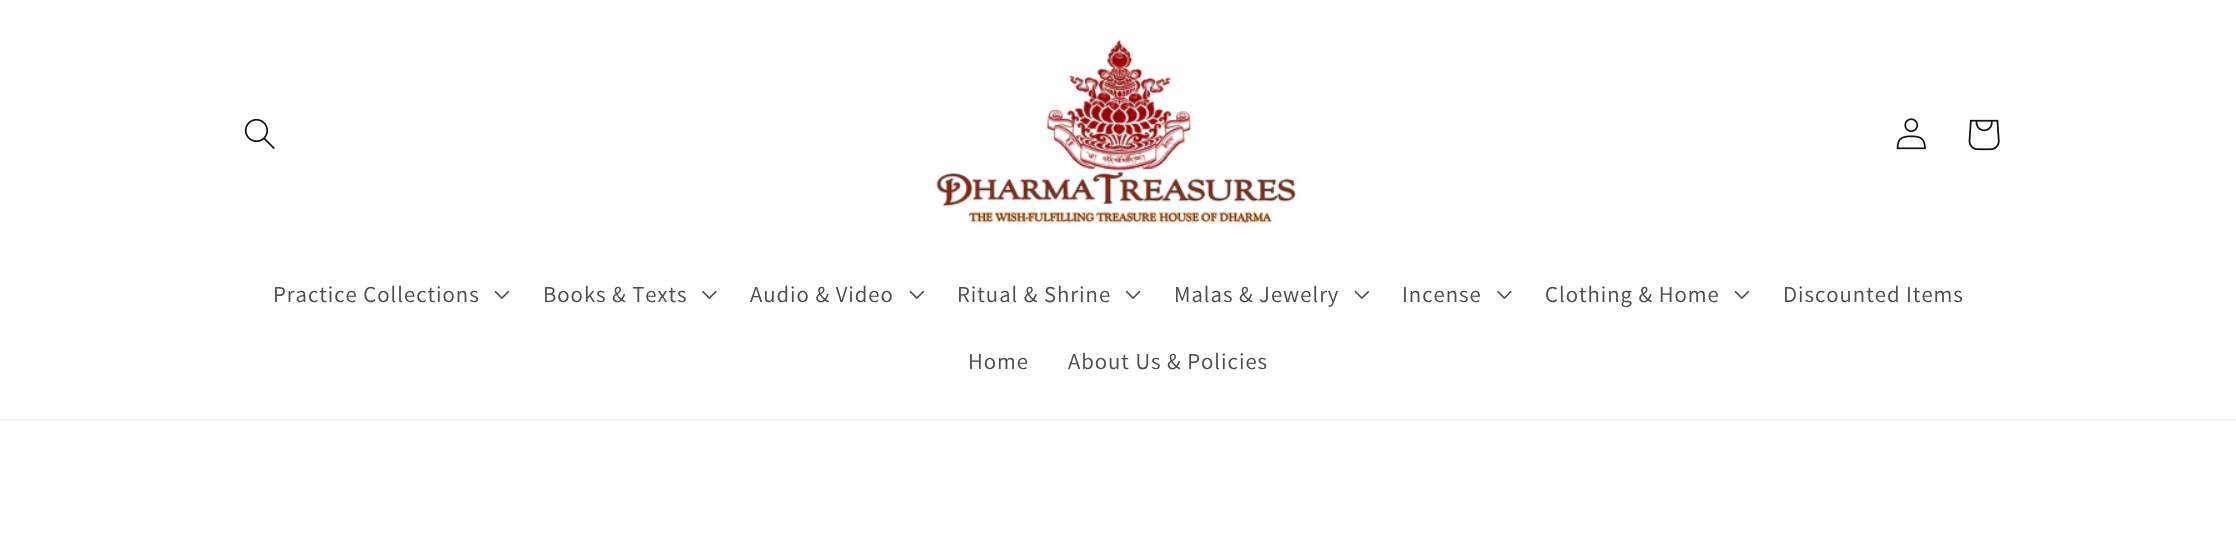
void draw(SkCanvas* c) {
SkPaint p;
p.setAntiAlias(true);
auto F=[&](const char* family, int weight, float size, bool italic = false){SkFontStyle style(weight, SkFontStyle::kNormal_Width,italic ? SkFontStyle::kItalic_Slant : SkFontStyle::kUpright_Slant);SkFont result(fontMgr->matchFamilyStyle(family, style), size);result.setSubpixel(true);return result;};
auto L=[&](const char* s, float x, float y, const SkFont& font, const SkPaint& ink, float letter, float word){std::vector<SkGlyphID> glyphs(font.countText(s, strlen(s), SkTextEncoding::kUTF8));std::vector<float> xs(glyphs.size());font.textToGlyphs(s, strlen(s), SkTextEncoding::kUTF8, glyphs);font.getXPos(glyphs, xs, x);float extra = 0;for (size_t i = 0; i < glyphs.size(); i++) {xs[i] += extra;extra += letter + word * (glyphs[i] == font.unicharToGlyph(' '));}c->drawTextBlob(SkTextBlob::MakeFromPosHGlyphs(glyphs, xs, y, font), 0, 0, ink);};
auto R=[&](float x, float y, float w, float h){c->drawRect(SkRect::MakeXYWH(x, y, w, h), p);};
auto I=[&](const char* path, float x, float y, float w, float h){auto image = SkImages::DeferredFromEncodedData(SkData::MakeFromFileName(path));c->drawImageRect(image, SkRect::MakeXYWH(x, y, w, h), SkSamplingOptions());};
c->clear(0xffffffff);
p.setColor(0xffececec);
R(0,419,2236,1);
I("1.png",244,118,31,31);
I("2.png",931,38,370,189);
I("3.png",1896,118,30,32);
I("4.png",1968,119,32,32);
auto f1 = F("Assistant",400,22.75);
p.setColor(0xff4d4d4d);
L("Practice Collections",273,302,f1,p,1,0);
I("5.png",494,290,16,9);
L("Books & Texts",543,302,f1,p,1,0);
I("6.png",702,290,15,9);
L("Audio & Video",750,302,f1,p,1,0);
I("5.png",909,290,16,9);
L("Ritual & Shrine",957,302,f1,p,1,0);
I("7.png",1125,290,16,9);
L("Malas & Jewelry",1174,302,f1,p,1,0);
I("5.png",1354,290,16,9);
L("Incense",1402,302,f1,p,1,0);
I("6.png",1497,290,15,9);
L("Clothing & Home",1545,302,f1,p,1,0);
I("5.png",1734,290,16,9);
L("Discounted Items",1783,302,f1,p,1,0);
L("Home",968,369,f1,p,1,0);
L("About Us & Policies",1068,369,f1,p,1,0);
}
